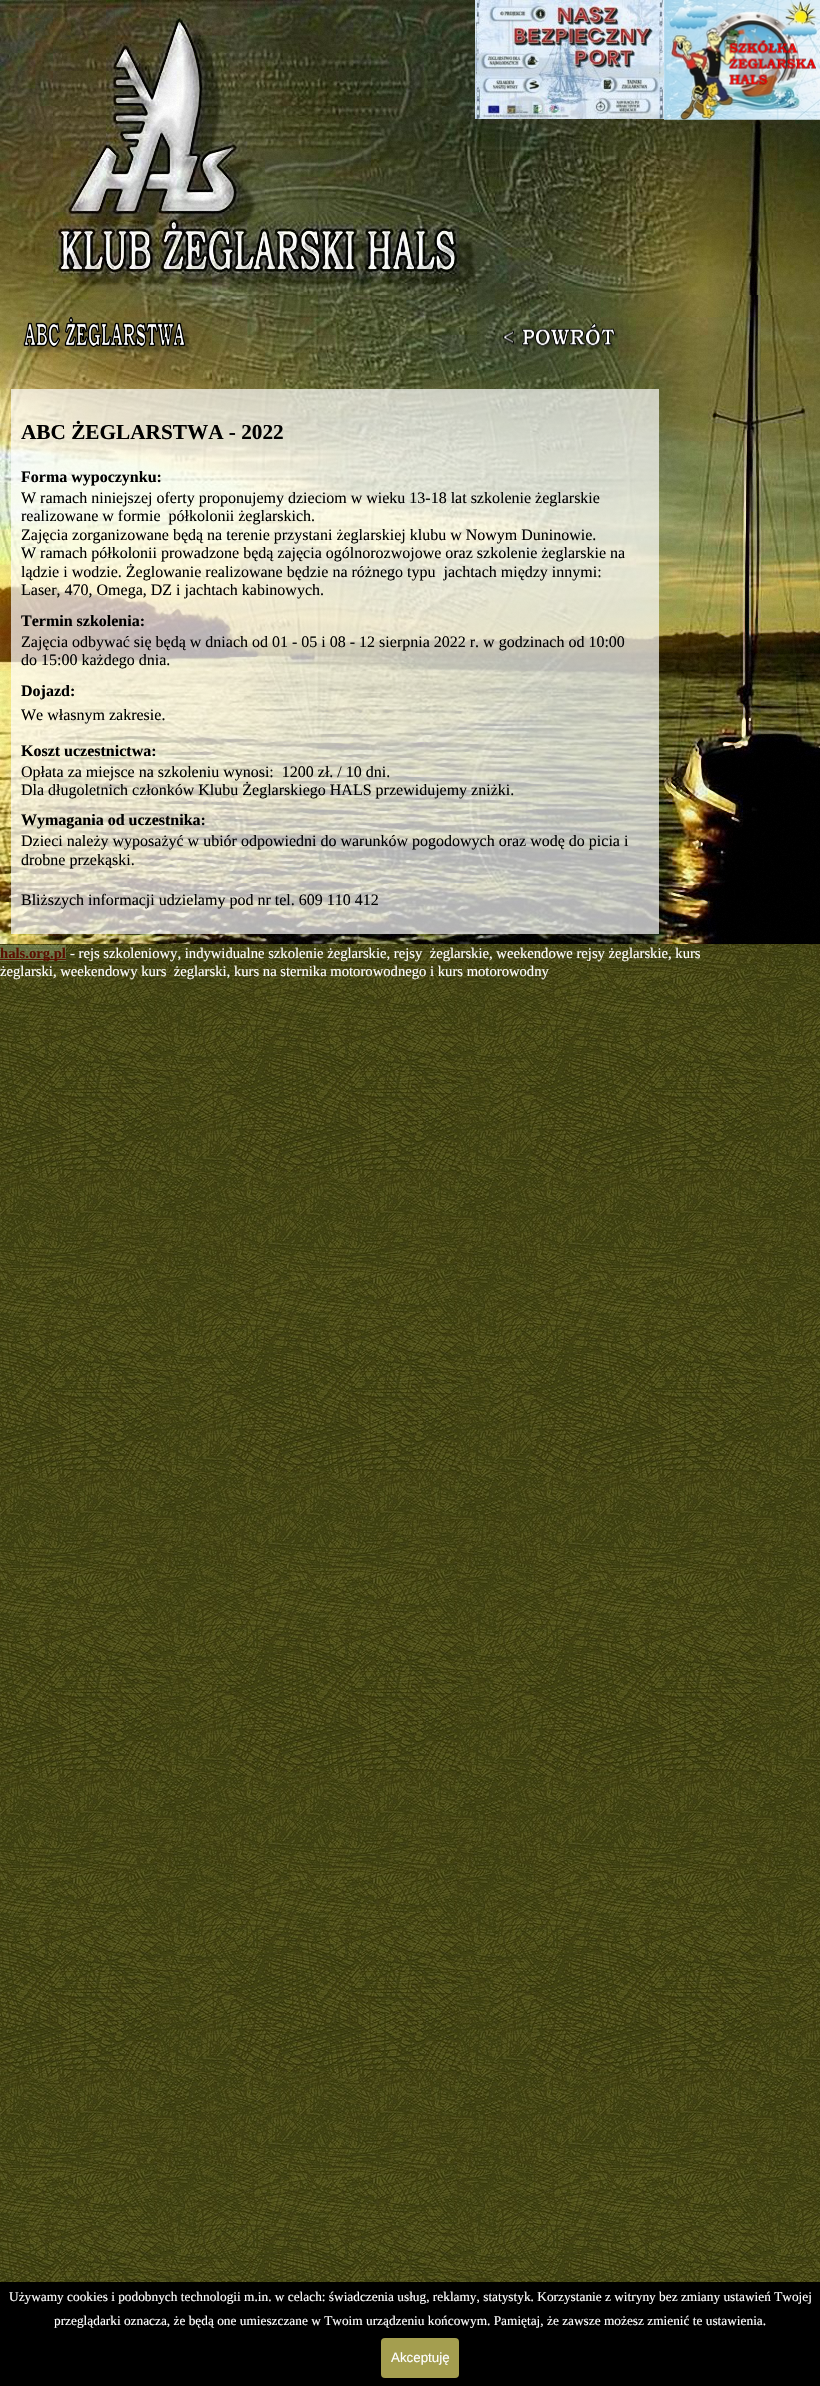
void draw(SkCanvas* c) {
SkPaint p;
p.setAntiAlias(true);
auto F=[&](const char* family, int weight, float size, bool italic = false){SkFontStyle style(weight, SkFontStyle::kNormal_Width,italic ? SkFontStyle::kItalic_Slant : SkFontStyle::kUpright_Slant);SkFont result(fontMgr->matchFamilyStyle(family, style), size);result.setSubpixel(true);return result;};
auto T=[&](const char* s, float x, float y, const SkFont& font){c->drawString(s, x, y, font, p);};
auto R=[&](float x, float y, float w, float h){c->drawRect(SkRect::MakeXYWH(x, y, w, h), p);};
auto Q=[&](float x, float y, float w, float h, float radius){c->drawRoundRect(SkRect::MakeXYWH(x, y, w, h), radius, radius, p);};
auto I=[&](const char* path, float x, float y, float w, float h){auto image = SkImages::DeferredFromEncodedData(SkData::MakeFromFileName(path));c->drawImageRect(image, SkRect::MakeXYWH(x, y, w, h), SkSamplingOptions());};
c->clear(0xffffffff);
I("1.png",0,944,820,1338);
I("2.png",0,0,820,295);
I("3.png",475,0,189,119);
I("4.png",664,0,156,120);
I("5.png",0,295,670,649);
I("6.png",670,295,150,649);
I("7.png",23,316,169,37);
I("8.png",503,323,115,26);
p.setColor(0xb3ffffff);
R(11,389,648,545);
auto f1 = F("Liberation Serif",700,21.25);
p.setColor(0xff000000);
T("ABC ŻEGLARSTWA - 2022",21,439,f1);
auto f2 = F("Liberation Serif",700,16);
T("Forma wypoczynku:",21,482,f2);
auto f3 = F("Liberation Serif",400,16);
T("W ramach niniejszej oferty proponujemy dzieciom w wieku 13-18 lat szkolenie żeglarskie",21,503,f3);
T("realizowane w formie  półkolonii żeglarskich.",21,521,f3);
T("Zajęcia zorganizowane będą na terenie przystani żeglarskiej klubu w Nowym Duninowie.",21,540,f3);
T("W ramach półkolonii prowadzone będą zajęcia ogólnorozwojowe oraz szkolenie żeglarskie na",21,558,f3);
T("lądzie i wodzie. Żeglowanie realizowane będzie na różnego typu  jachtach między innymi:",21,577,f3);
T("Laser, 470, Omega, DZ i jachtach kabinowych.",21,595,f3);
T("Termin szkolenia:",21,626,f2);
T("Zajęcia odbywać się będą w dniach od 01 - 05 i 08 - 12 sierpnia 2022 r. w godzinach od 10:00",21,647,f3);
T("do 15:00 każdego dnia.",21,665,f3);
T("Dojazd:",21,696,f2);
T("We własnym zakresie.",21,720,f3);
T("Koszt uczestnictwa:",21,756,f2);
T("Opłata za miejsce na szkoleniu wynosi:  1200 zł. / 10 dni.",21,777,f3);
T("Dla długoletnich członków Klubu Żeglarskiego HALS przewidujemy zniżki.",21,795,f3);
T("Wymagania od uczestnika:",21,825,f2);
T("Dzieci należy wyposażyć w ubiór odpowiedni do warunków pogodowych oraz wodę do picia i",21,846,f3);
T("drobne przekąski.",21,865,f3);
T("Bliższych informacji udzielamy pod nr tel. 609 110 412",21,905,f3);
p.setColor(0x52b6d7a8);
R(0,945,66,16);
p.setColor(0xff5b0f00);
R(0,959,66,1);
auto f4 = F("Liberation Serif",700,14.65);
T("hals.org.pl",0,958,f4);
auto f5 = F("Liberation Serif",400,14.65);
p.setColor(0xffffffff);
T("- rejs szkoleniowy, indywidualne szkolenie żeglarskie, rejsy  żeglarskie, weekendowe rejsy żeglarskie, kurs",70,958,f5);
T("żeglarski, weekendowy kurs  żeglarski, kurs na sternika motorowodnego i kurs motorowodny",0,976,f5);
p.setColor(0xff000000);
R(0,2282,820,104);
auto f6 = F("Liberation Serif",400,13.33);
p.setColor(0xffffffff);
T("Używamy cookies i podobnych technologii m.in. w celach: świadczenia usług, reklamy, statystyk. Korzystanie z witryny bez zmiany ustawień Twojej",9,2301,f6);
T("przeglądarki oznacza, że będą one umieszczane w Twoim urządzeniu końcowym. Pamiętaj, że zawsze możesz zmienić te ustawienia.",54,2325,f6);
p.setColor(0xffa49e4f);
Q(381,2338,78,40,4);
auto f7 = F("Liberation Sans",400,13.33);
p.setColor(0xffffffff);
T("Akceptuję",391,2362,f7);
}
